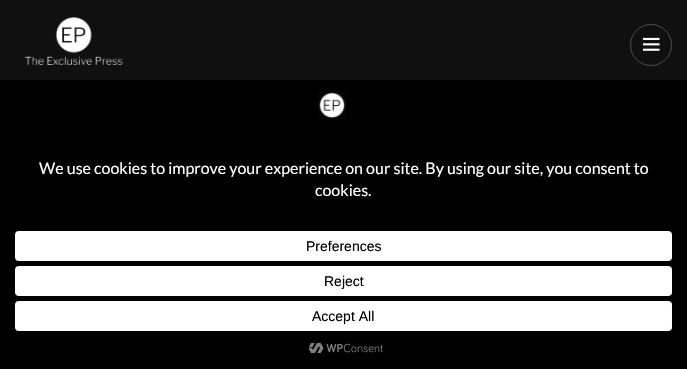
void draw(SkCanvas* c) {
SkPaint p;
p.setAntiAlias(true);
auto F=[&](const char* family, int weight, float size, bool italic = false){SkFontStyle style(weight, SkFontStyle::kNormal_Width,italic ? SkFontStyle::kItalic_Slant : SkFontStyle::kUpright_Slant);SkFont result(fontMgr->matchFamilyStyle(family, style), size);result.setSubpixel(true);return result;};
auto T=[&](const char* s, float x, float y, const SkFont& font){c->drawString(s, x, y, font, p);};
auto R=[&](float x, float y, float w, float h){c->drawRect(SkRect::MakeXYWH(x, y, w, h), p);};
auto Q=[&](float x, float y, float w, float h, float radius){c->drawRoundRect(SkRect::MakeXYWH(x, y, w, h), radius, radius, p);};
auto I=[&](const char* path, float x, float y, float w, float h){auto image = SkImages::DeferredFromEncodedData(SkData::MakeFromFileName(path));c->drawImageRect(image, SkRect::MakeXYWH(x, y, w, h), SkSamplingOptions());};
c->clear(0xff101010);
I("1.png",24,17,99,48);
p.setStroke(true);
p.setStrokeWidth(1);
p.setColor(0xff4c4c4c);
c->drawCircle(651,45,20.5,p);
I("2.png",643,37,17,14);
p.setStroke(false);
p.setColor(0xff000000);
R(0,80,687,289);
I("3.png",318,90,29,30);
auto f1 = F("Lato",400,16);
p.setColor(0xffffffff);
T("We use cookies to improve your experience on our site. By using our site, you consent to",39,174,f1);
T("cookies.",315,196,f1);
Q(15,231,657,30,4);
auto f2 = F("Liberation Sans",400,14);
p.setColor(0xff000000);
T("Preferences",306,251,f2);
p.setColor(0xffffffff);
Q(15,266,657,30,4);
p.setColor(0xff000000);
T("Reject",324,286,f2);
p.setColor(0xffffffff);
Q(15,301,657,30,4);
p.setColor(0xff000000);
T("Accept All",312,321,f2);
I("4.png",308,343,75,11);
}
